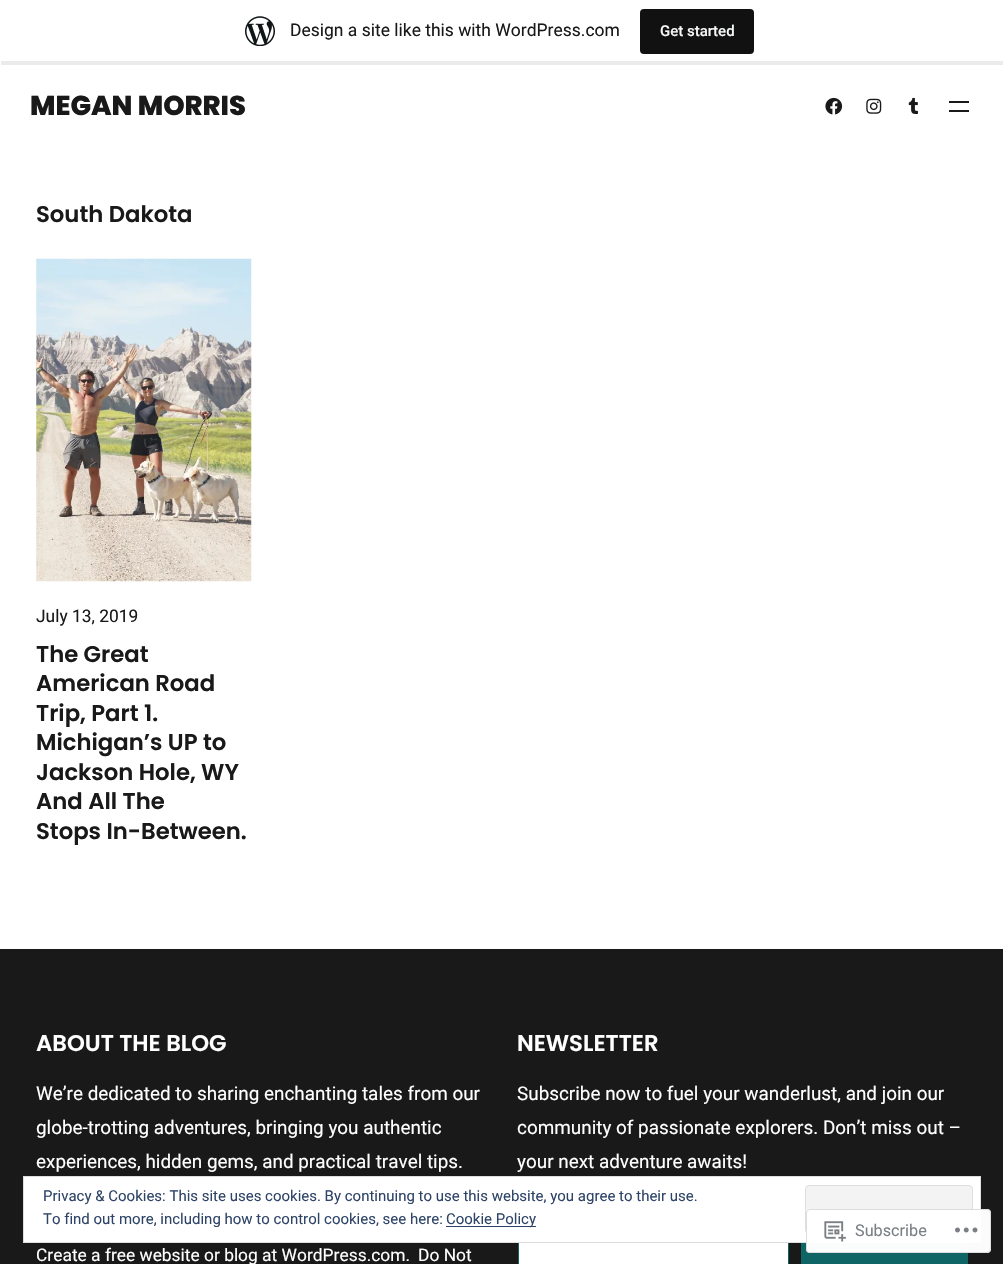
void draw(SkCanvas* c) {
SkPaint p;
p.setAntiAlias(true);
auto F=[&](const char* family, int weight, float size, bool italic = false){SkFontStyle style(weight, SkFontStyle::kNormal_Width,italic ? SkFontStyle::kItalic_Slant : SkFontStyle::kUpright_Slant);SkFont result(fontMgr->matchFamilyStyle(family, style), size);result.setSubpixel(true);return result;};
auto T=[&](const char* s, float x, float y, const SkFont& font){c->drawString(s, x, y, font, p);};
auto R=[&](float x, float y, float w, float h){c->drawRect(SkRect::MakeXYWH(x, y, w, h), p);};
auto Q=[&](float x, float y, float w, float h, float radius){c->drawRoundRect(SkRect::MakeXYWH(x, y, w, h), radius, radius, p);};
auto I=[&](const char* path, float x, float y, float w, float h){auto image = SkImages::DeferredFromEncodedData(SkData::MakeFromFileName(path));c->drawImageRect(image, SkRect::MakeXYWH(x, y, w, h), SkSamplingOptions());};
auto P=[&](const char* data, bool evenOdd = false){SkPath result = *SkParsePath::FromSVGString(data);if (evenOdd) result.setFillType(SkPathFillType::kEvenOdd);return result;};
c->clear(0xffffffff);
p.setColor(0x14000000);
c->drawPath(P("M1 61v4h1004v-61h-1v57z"),p);
I("1.png",245,16,30,30);
auto f1 = F("Roboto",400,17.5);
p.setColor(0xff191919);
T("Design a site like this with WordPress.com",290,36,f1);
p.setColor(0xff111111);
Q(640,9,114,45,4);
auto f2 = F("Roboto",500,15);
p.setColor(0xfff6f7f7);
T("Get started",660,36,f2);
auto f3 = F("Poppins",800,27.25);
p.setColor(0xff191919);
T("MEGAN MORRIS",30,115,f3);
I("2.png",825,97,18,18);
I("3.png",866,98,16,16);
I("4.png",908,97,10,17);
R(949,101,20,2);
R(949,110,20,2);
auto f4 = F("Poppins",600,22.75);
T("South Dakota",36,222,f4);
I("5.png",36,258,216,324);
auto f5 = F("Roboto",400,17.4);
T("July 13, 2019",36,622,f5);
T("The Great",36,662,f4);
T("American Road",36,691,f4);
T("Trip, Part 1.",36,721,f4);
T("Michigan’s UP to",36,750,f4);
T("Jackson Hole, WY",36,780,f4);
T("And All The",36,809,f4);
T("Stops In-Between.",36,839,f4);
R(0,949,1003,315);
p.setColor(0xffffffff);
T("ABOUT THE BLOG",36,1051,f4);
auto f6 = F("Roboto",400,18.9);
T("We’re dedicated to sharing enchanting tales from our",36,1100,f6);
T("globe-trotting adventures, bringing you authentic",36,1134,f6);
T("experiences, hidden gems, and practical travel tips.",36,1168,f6);
T("Create a free website or blog at WordPress.com.",36,1261,f5);
T("Do Not",418,1261,f5);
T("NEWSLETTER",517,1051,f4);
T("Subscribe now to fuel your wanderlust, and join our",517,1100,f6);
T("community of passionate explorers. Don’t miss out –",517,1134,f6);
T("your next adventure awaits!",517,1168,f6);
R(519,1243,269,21);
p.setStroke(true);
p.setStrokeWidth(1);
p.setColor(0xff0f6466);
c->drawRect(SkRect::MakeXYWH(518.5,1200.5,270,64),p);
p.setStroke(false);
R(801,1243,167,21);
p.setColor(0xffffffff);
c->drawRect(SkRect::MakeXYWH(23.5,1176.5,957,66),p);
p.setStroke(true);
p.setColor(0xffdedede);
c->drawRect(SkRect::MakeXYWH(23.5,1176.5,957,66),p);
auto f7 = F("Roboto",400,15);
p.setStroke(false);
p.setColor(0xff2e4467);
T("Privacy & Cookies: This site uses cookies. By continuing to use this website, you agree to their use.",43,1201,f7);
p.setColor(0xfff3f3f3);
c->drawRoundRect(SkRect::MakeXYWH(805.5,1185.5,167,48),3.5,3.5,p);
p.setStroke(true);
p.setColor(0xffdedede);
c->drawRoundRect(SkRect::MakeXYWH(805.5,1185.5,167,48),3.5,3.5,p);
p.setStroke(false);
p.setColor(0xff2e4467);
T("To find out more, including how to control cookies, see here:",43,1224,f7);
R(446,1226,90,1);
T("Cookie Policy",446,1224,f7);
p.setColor(0xfaffffff);
Q(806,1209,185,44,4);
p.setStroke(true);
p.setColor(0xfadcdcde);
c->drawRoundRect(SkRect::MakeXYWH(806.5,1209.5,184,43),3.5,3.5,p);
I("6.png",824,1221,22,21);
auto f8 = F("Roboto",400,16.25);
p.setStroke(false);
p.setColor(0xff7b7f84);
T("Subscribe",855,1236,f8);
I("7.png",955,1227,23,6);
}
